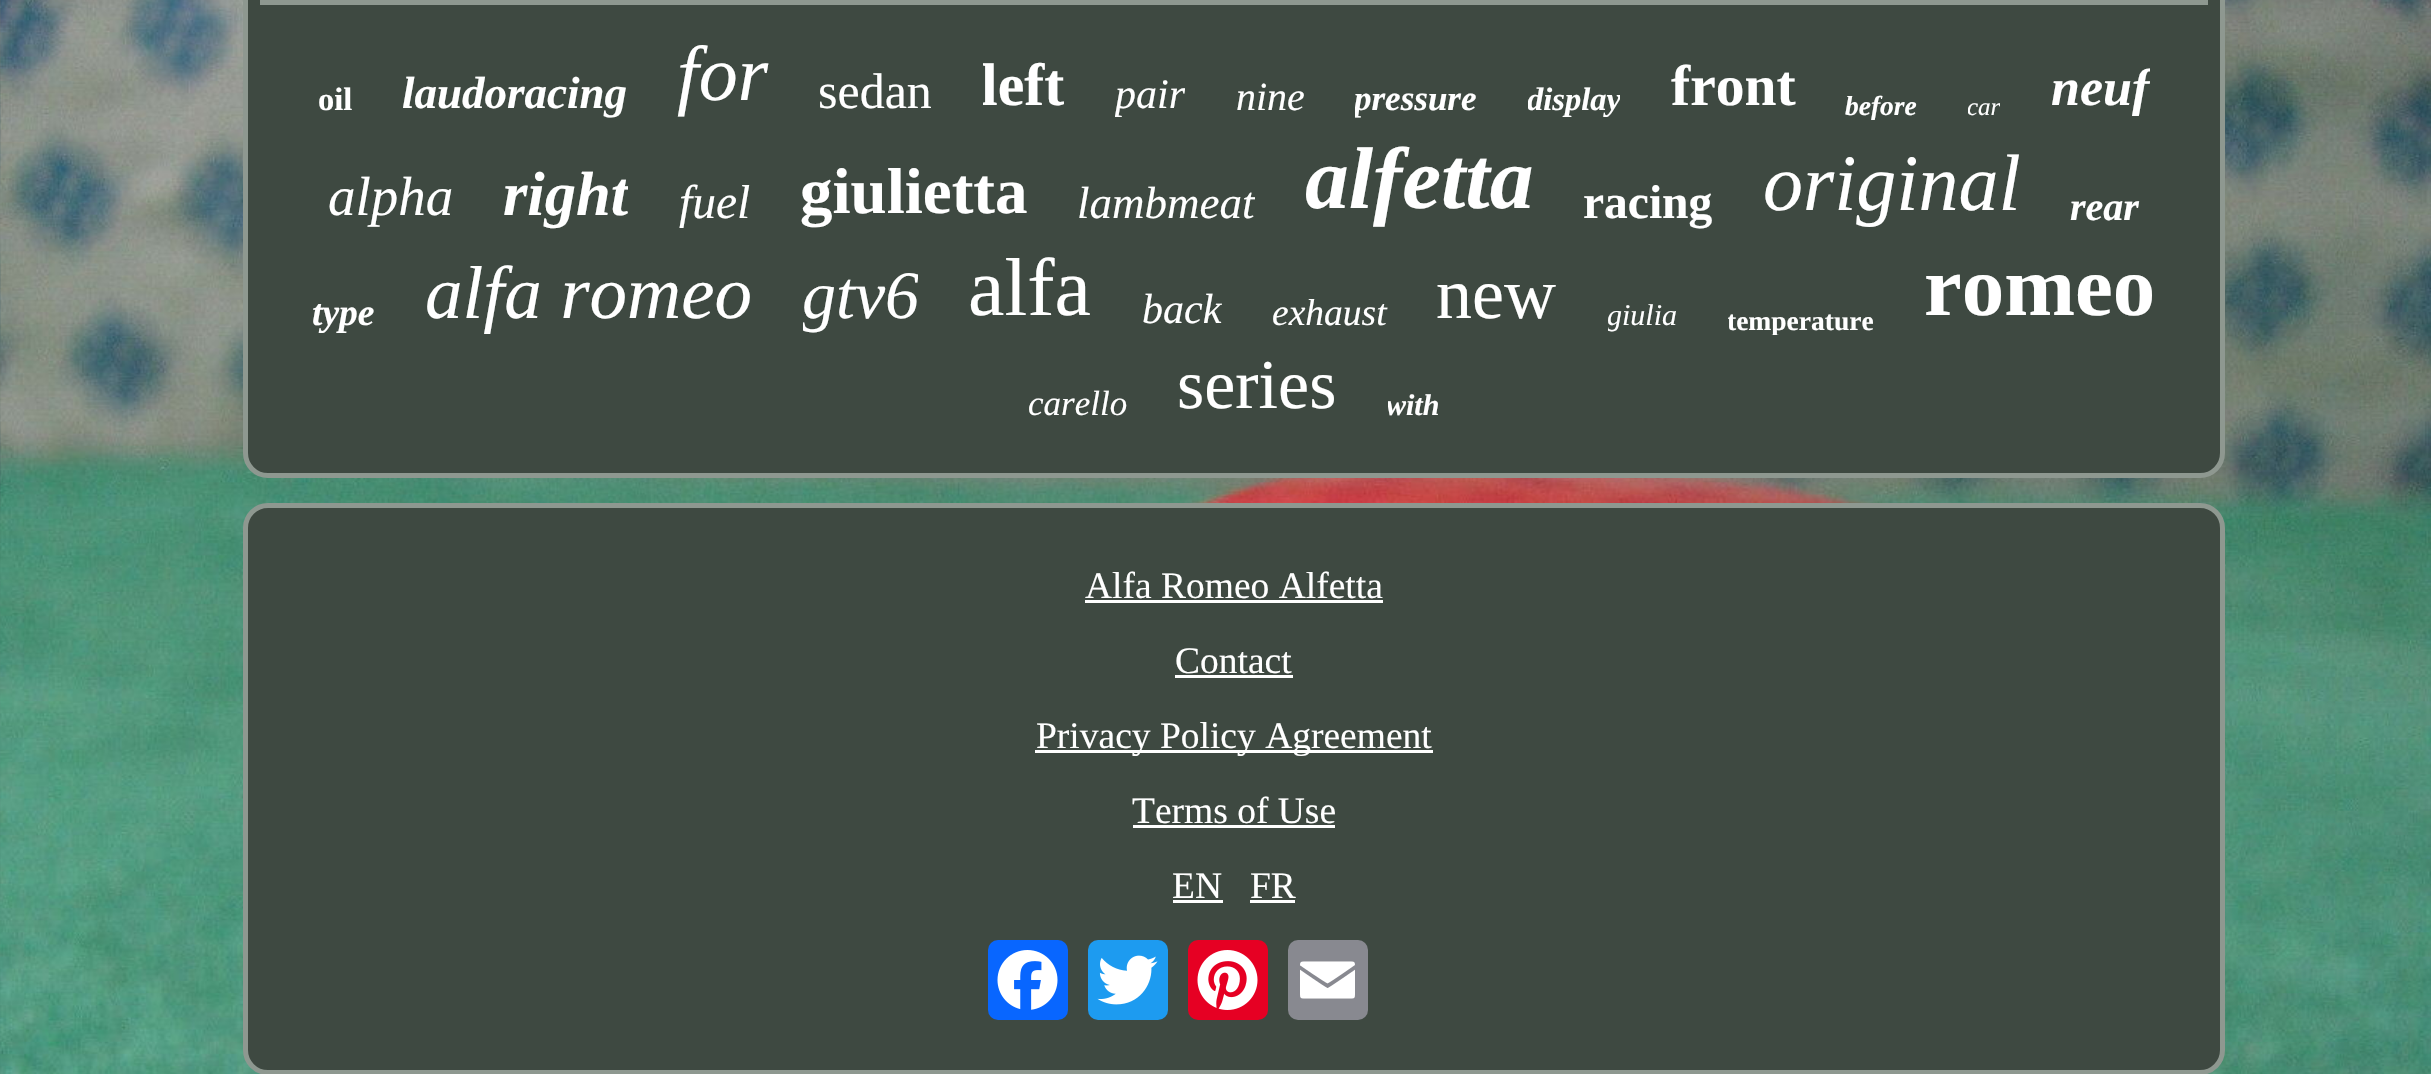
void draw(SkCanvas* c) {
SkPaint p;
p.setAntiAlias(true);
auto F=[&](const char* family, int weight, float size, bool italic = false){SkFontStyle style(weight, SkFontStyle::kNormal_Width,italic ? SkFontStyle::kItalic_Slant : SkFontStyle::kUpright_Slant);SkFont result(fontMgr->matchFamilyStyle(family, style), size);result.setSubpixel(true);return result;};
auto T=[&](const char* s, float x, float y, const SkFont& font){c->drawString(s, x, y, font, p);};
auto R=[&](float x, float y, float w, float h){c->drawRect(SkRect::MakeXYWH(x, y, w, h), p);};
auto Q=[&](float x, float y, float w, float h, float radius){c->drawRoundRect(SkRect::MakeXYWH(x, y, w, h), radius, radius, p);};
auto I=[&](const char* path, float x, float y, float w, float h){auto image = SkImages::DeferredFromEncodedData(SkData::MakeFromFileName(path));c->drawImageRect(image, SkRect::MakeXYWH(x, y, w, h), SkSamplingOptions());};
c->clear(0xffffffff);
I("1.png",0,0,2431,1074);
p.setColor(0xff3e4941);
c->drawRoundRect(SkRect::MakeXYWH(245.5,-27.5,1977,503),22.5,22.5,p);
p.setStroke(true);
p.setStrokeWidth(5);
p.setColor(0xff8e9890);
c->drawRoundRect(SkRect::MakeXYWH(245.5,-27.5,1977,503),22.5,22.5,p);
p.setStroke(false);
R(260,0,1948,5);
auto f1 = F("Liberation Serif",700,32.5);
p.setColor(0xffffffff);
T("oil",318,110,f1);
auto f2 = F("Liberation Serif",700,45,true);
T("laudoracing",402,108,f2);
auto f3 = F("Liberation Serif",400,78,true);
T("for",677,100,f3);
auto f4 = F("Liberation Serif",400,50);
T("sedan",818,108,f4);
c->save();
c->clipRect(SkRect::MakeXYWH(983,53,82,67));
auto f5 = F("Liberation Serif",700,60);
T("left",981,105,f5);
c->restore();
c->save();
c->clipRect(SkRect::MakeXYWH(1115,70,70,50));
auto f6 = F("Liberation Serif",400,42,true);
T("pair",1115,108,f6);
c->restore();
auto f7 = F("Liberation Serif",400,40,true);
T("nine",1236,110,f7);
c->save();
c->clipRect(SkRect::MakeXYWH(1355,80,123,40));
auto f8 = F("Liberation Serif",700,35,true);
T("pressure",1354,110,f8);
c->restore();
c->save();
c->clipRect(SkRect::MakeXYWH(1528,80,92,40));
auto f9 = F("Liberation Serif",700,32.5,true);
T("display",1527,110,f9);
c->restore();
auto f10 = F("Liberation Serif",700,57.5);
T("front",1671,105,f10);
c->save();
c->clipRect(SkRect::MakeXYWH(1845,90,73,30));
auto f11 = F("Liberation Serif",700,27.5,true);
T("before",1845,115,f11);
c->restore();
c->save();
c->clipRect(SkRect::MakeXYWH(1968,93,32,27));
auto f12 = F("Liberation Serif",400,25,true);
T("car",1967,115,f12);
c->restore();
c->save();
c->clipRect(SkRect::MakeXYWH(2050,58,100,62));
auto f13 = F("Liberation Serif",700,52,true);
T("neuf",2051,105,f13);
c->restore();
auto f14 = F("Liberation Serif",400,55,true);
T("alpha",328,215,f14);
c->save();
c->clipRect(SkRect::MakeXYWH(503,160,125,70));
auto f15 = F("Liberation Serif",700,62.5,true);
T("right",503,215,f15);
c->restore();
auto f16 = F("Liberation Serif",400,47.5,true);
T("fuel",679,218,f16);
auto f17 = F("Liberation Serif",700,65);
T("giulietta",800,213,f17);
c->save();
c->clipRect(SkRect::MakeXYWH(1078,178,177,52));
auto f18 = F("Liberation Serif",400,45,true);
T("lambmeat",1077,218,f18);
c->restore();
auto f19 = F("Liberation Serif",700,87.5,true);
T("alfetta",1305,208,f19);
auto f20 = F("Liberation Serif",700,47.5);
T("racing",1583,218,f20);
auto f21 = F("Liberation Serif",400,80,true);
T("original",1763,210,f21);
auto f22 = F("Liberation Serif",700,40,true);
T("rear",2070,220,f22);
auto f23 = F("Liberation Serif",700,37.5,true);
T("type",312,325,f23);
auto f24 = F("Liberation Serif",400,75,true);
T("alfa romeo",425,318,f24);
c->save();
c->clipRect(SkRect::MakeXYWH(803,258,115,77));
auto f25 = F("Liberation Serif",400,68,true);
T("gtv6",802,318,f25);
c->restore();
auto f26 = F("Liberation Serif",400,82);
T("alfa",968,315,f26);
T("back",1142,323,f6);
auto f27 = F("Liberation Serif",400,37.5,true);
T("exhaust",1272,325,f27);
auto f28 = F("Liberation Serif",400,72);
T("new",1436,318,f28);
c->save();
c->clipRect(SkRect::MakeXYWH(1608,298,70,37));
auto f29 = F("Liberation Serif",400,30,true);
T("giulia",1607,325,f29);
c->restore();
c->save();
c->clipRect(SkRect::MakeXYWH(1728,305,147,30));
auto f30 = F("Liberation Serif",700,27.5);
T("temperature",1727,330,f30);
c->restore();
auto f31 = F("Liberation Serif",700,85);
T("romeo",1924,315,f31);
auto f32 = F("Liberation Serif",400,35,true);
T("carello",1028,415,f32);
auto f33 = F("Liberation Serif",400,70);
T("series",1177,408,f33);
c->save();
c->clipRect(SkRect::MakeXYWH(1388,388,52,37));
auto f34 = F("Liberation Serif",700,30,true);
T("with",1386,415,f34);
c->restore();
p.setColor(0xff3e4941);
c->drawRoundRect(SkRect::MakeXYWH(245.5,505.5,1977,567),22.5,22.5,p);
p.setStroke(true);
p.setColor(0xff8e9890);
c->drawRoundRect(SkRect::MakeXYWH(245.5,505.5,1977,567),22.5,22.5,p);
auto f35 = F("Liberation Serif",400,37.5);
p.setStroke(false);
p.setColor(0xffffffff);
T("Alfa Romeo Alfetta",1085,598,f35);
R(1085,600,298,3);
T("Contact",1175,673,f35);
R(1175,675,118,3);
R(1035,750,398,3);
T("Privacy Policy Agreement",1036,748,f35);
T("Terms of Use",1132,823,f35);
R(1133,825,202,3);
T("EN",1172,898,f35);
R(1173,900,50,3);
T("FR",1250,898,f35);
R(1250,900,45,3);
p.setColor(0xff0866ff);
Q(988,940,80,80,10);
I("2.png",997,950,61,60);
p.setColor(0xff1d9bf0);
Q(1088,940,80,80,10);
I("3.png",1097,955,61,50);
p.setColor(0xffe60023);
Q(1188,940,80,80,10);
I("4.png",1197,950,61,60);
p.setColor(0xff888990);
Q(1288,940,80,80,10);
I("5.png",1300,961,55,38);
}
